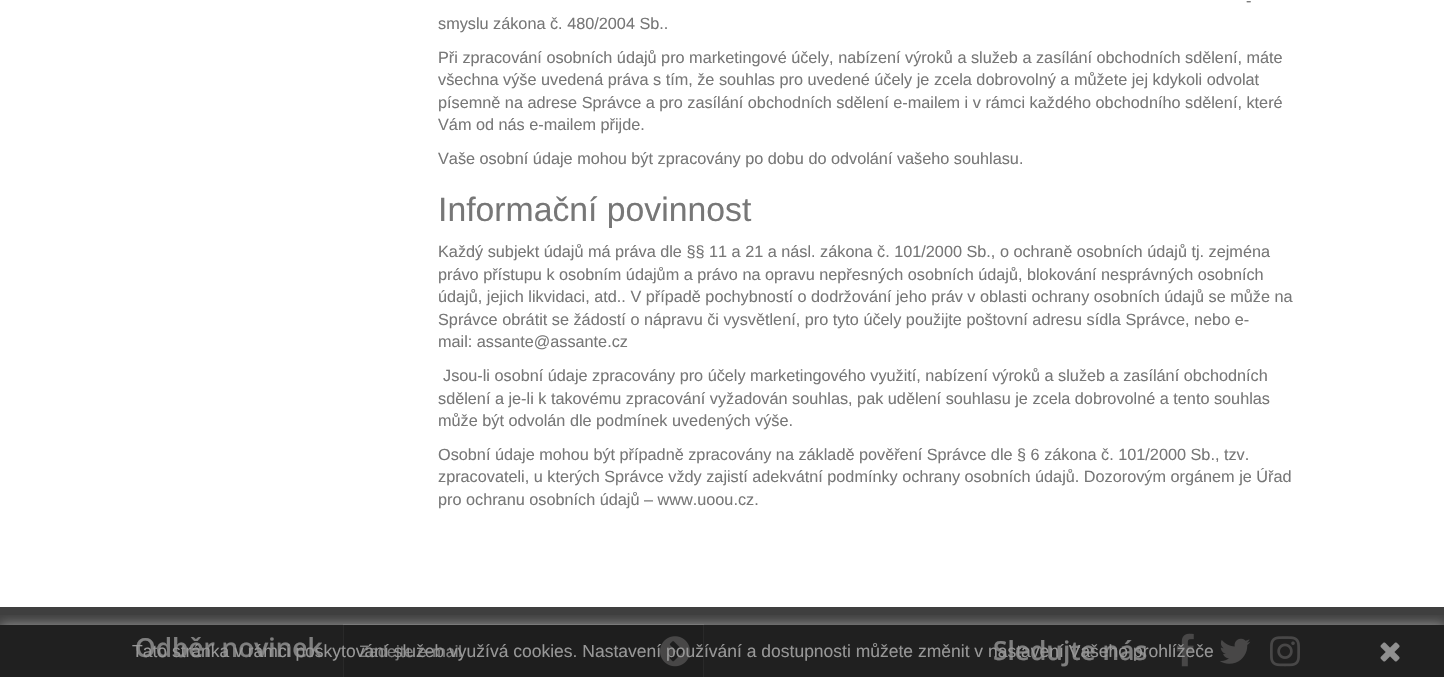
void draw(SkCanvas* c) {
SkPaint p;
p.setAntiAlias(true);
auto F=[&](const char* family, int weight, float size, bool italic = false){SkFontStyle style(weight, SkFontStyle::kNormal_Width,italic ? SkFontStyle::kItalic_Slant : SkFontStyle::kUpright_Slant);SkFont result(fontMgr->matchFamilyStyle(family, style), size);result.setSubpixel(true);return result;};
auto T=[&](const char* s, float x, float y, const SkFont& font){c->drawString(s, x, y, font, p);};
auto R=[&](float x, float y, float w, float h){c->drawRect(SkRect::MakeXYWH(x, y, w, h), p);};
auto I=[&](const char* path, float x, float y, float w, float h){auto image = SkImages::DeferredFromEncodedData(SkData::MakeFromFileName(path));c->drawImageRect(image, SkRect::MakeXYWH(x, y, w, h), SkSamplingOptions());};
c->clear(0xffffffff);
auto f1 = F("Liberation Sans",400,16.25);
p.setColor(0xff777777);
T("-",1246,6,f1);
T("smyslu zákona č. 480/2004 Sb..",438,29,f1);
T("Při zpracování osobních údajů pro marketingové účely, nabízení výroků a služeb a zasílání obchodních sdělení, máte",438,63,f1);
T("všechna výše uvedená práva s tím, že souhlas pro uvedené účely je zcela dobrovolný a můžete jej kdykoli odvolat",438,85,f1);
T("písemně na adrese Správce a pro zasílání obchodních sdělení e-mailem i v rámci každého obchodního sdělení, které",438,108,f1);
T("Vám od nás e-mailem přijde.",438,130,f1);
T("Vaše osobní údaje mohou být zpracovány po dobu do odvolání vašeho souhlasu.",438,164,f1);
auto f2 = F("Liberation Sans",400,33.75);
T("Informační povinnost",438,221,f2);
T("Každý subjekt údajů má práva dle §§ 11 a 21 a násl. zákona č. 101/2000 Sb., o ochraně osobních údajů tj. zejména",438,257,f1);
T("právo přístupu k osobním údajům a právo na opravu nepřesných osobních údajů, blokování nesprávných osobních",438,280,f1);
T("údajů, jejich likvidaci, atd.. V případě pochybností o dodržování jeho práv v oblasti ochrany osobních údajů se může na",438,302,f1);
T("Správce obrátit se žádostí o nápravu či vysvětlení, pro tyto účely použijte poštovní adresu sídla Správce, nebo e-",438,325,f1);
T("mail: assante@assante.cz",438,347,f1);
T("Jsou-li osobní údaje zpracovány pro účely marketingového využití, nabízení výroků a služeb a zasílání obchodních",443,381,f1);
T("sdělení a je-li k takovému zpracování vyžadován souhlas, pak udělení souhlasu je zcela dobrovolné a tento souhlas",438,404,f1);
T("může být odvolán dle podmínek uvedených výše.",438,426,f1);
T("Osobní údaje mohou být případně zpracovány na základě pověření Správce dle § 6 zákona č. 101/2000 Sb., tzv.",438,460,f1);
T("zpracovateli, u kterých Správce vždy zajistí adekvátní podmínky ochrany osobních údajů. Dozorovým orgánem je Úřad",438,482,f1);
T("pro ochranu osobních údajů – www.uoou.cz.",438,505,f1);
p.setColor(0xff3f3f3f);
R(0,607,1444,70);
auto f3 = F("Open Sans",600,26.25);
p.setColor(0xffffffff);
T("Odběr novinek",135,657,f3);
p.setColor(0xff3c3c3c);
c->drawRect(SkRect::MakeXYWH(343.5,624.5,360,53),p);
p.setStroke(true);
p.setStrokeWidth(1);
p.setColor(0xff515151);
c->drawRect(SkRect::MakeXYWH(343.5,624.5,360,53),p);
p.setStroke(false);
p.setColor(0xffffffff);
T("Zadejte e-mail",359,657,f1);
I("1.png",660,636,30,31);
T("Sledujte nás",993,660,f3);
I("2.png",1176,633,18,34);
I("3.png",1220,638,31,26);
I("4.png",1270,636,30,31);
c->save();
c->clipRect(SkRect::MakeXYWH(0,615,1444,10));
p.setColor(0x80ffffff);
p.setMaskFilter(SkMaskFilter::MakeBlur(kNormal_SkBlurStyle, 6));
c->drawRect(SkRect::MakeXYWH(0,625,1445,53),p);
p.setMaskFilter(nullptr);
c->restore();
p.setColor(0x80000000);
R(0,625,1444,52);
auto f4 = F("Liberation Sans",400,17.5);
p.setColor(0xff979797);
T("Tato stránka v rámci poskytování služeb využívá cookies. Nastavení používání a dostupnosti můžete změnit v nastavení Vašeho prohlížeče",132,657,f4);
I("5.png",1380,642,20,20);
}
